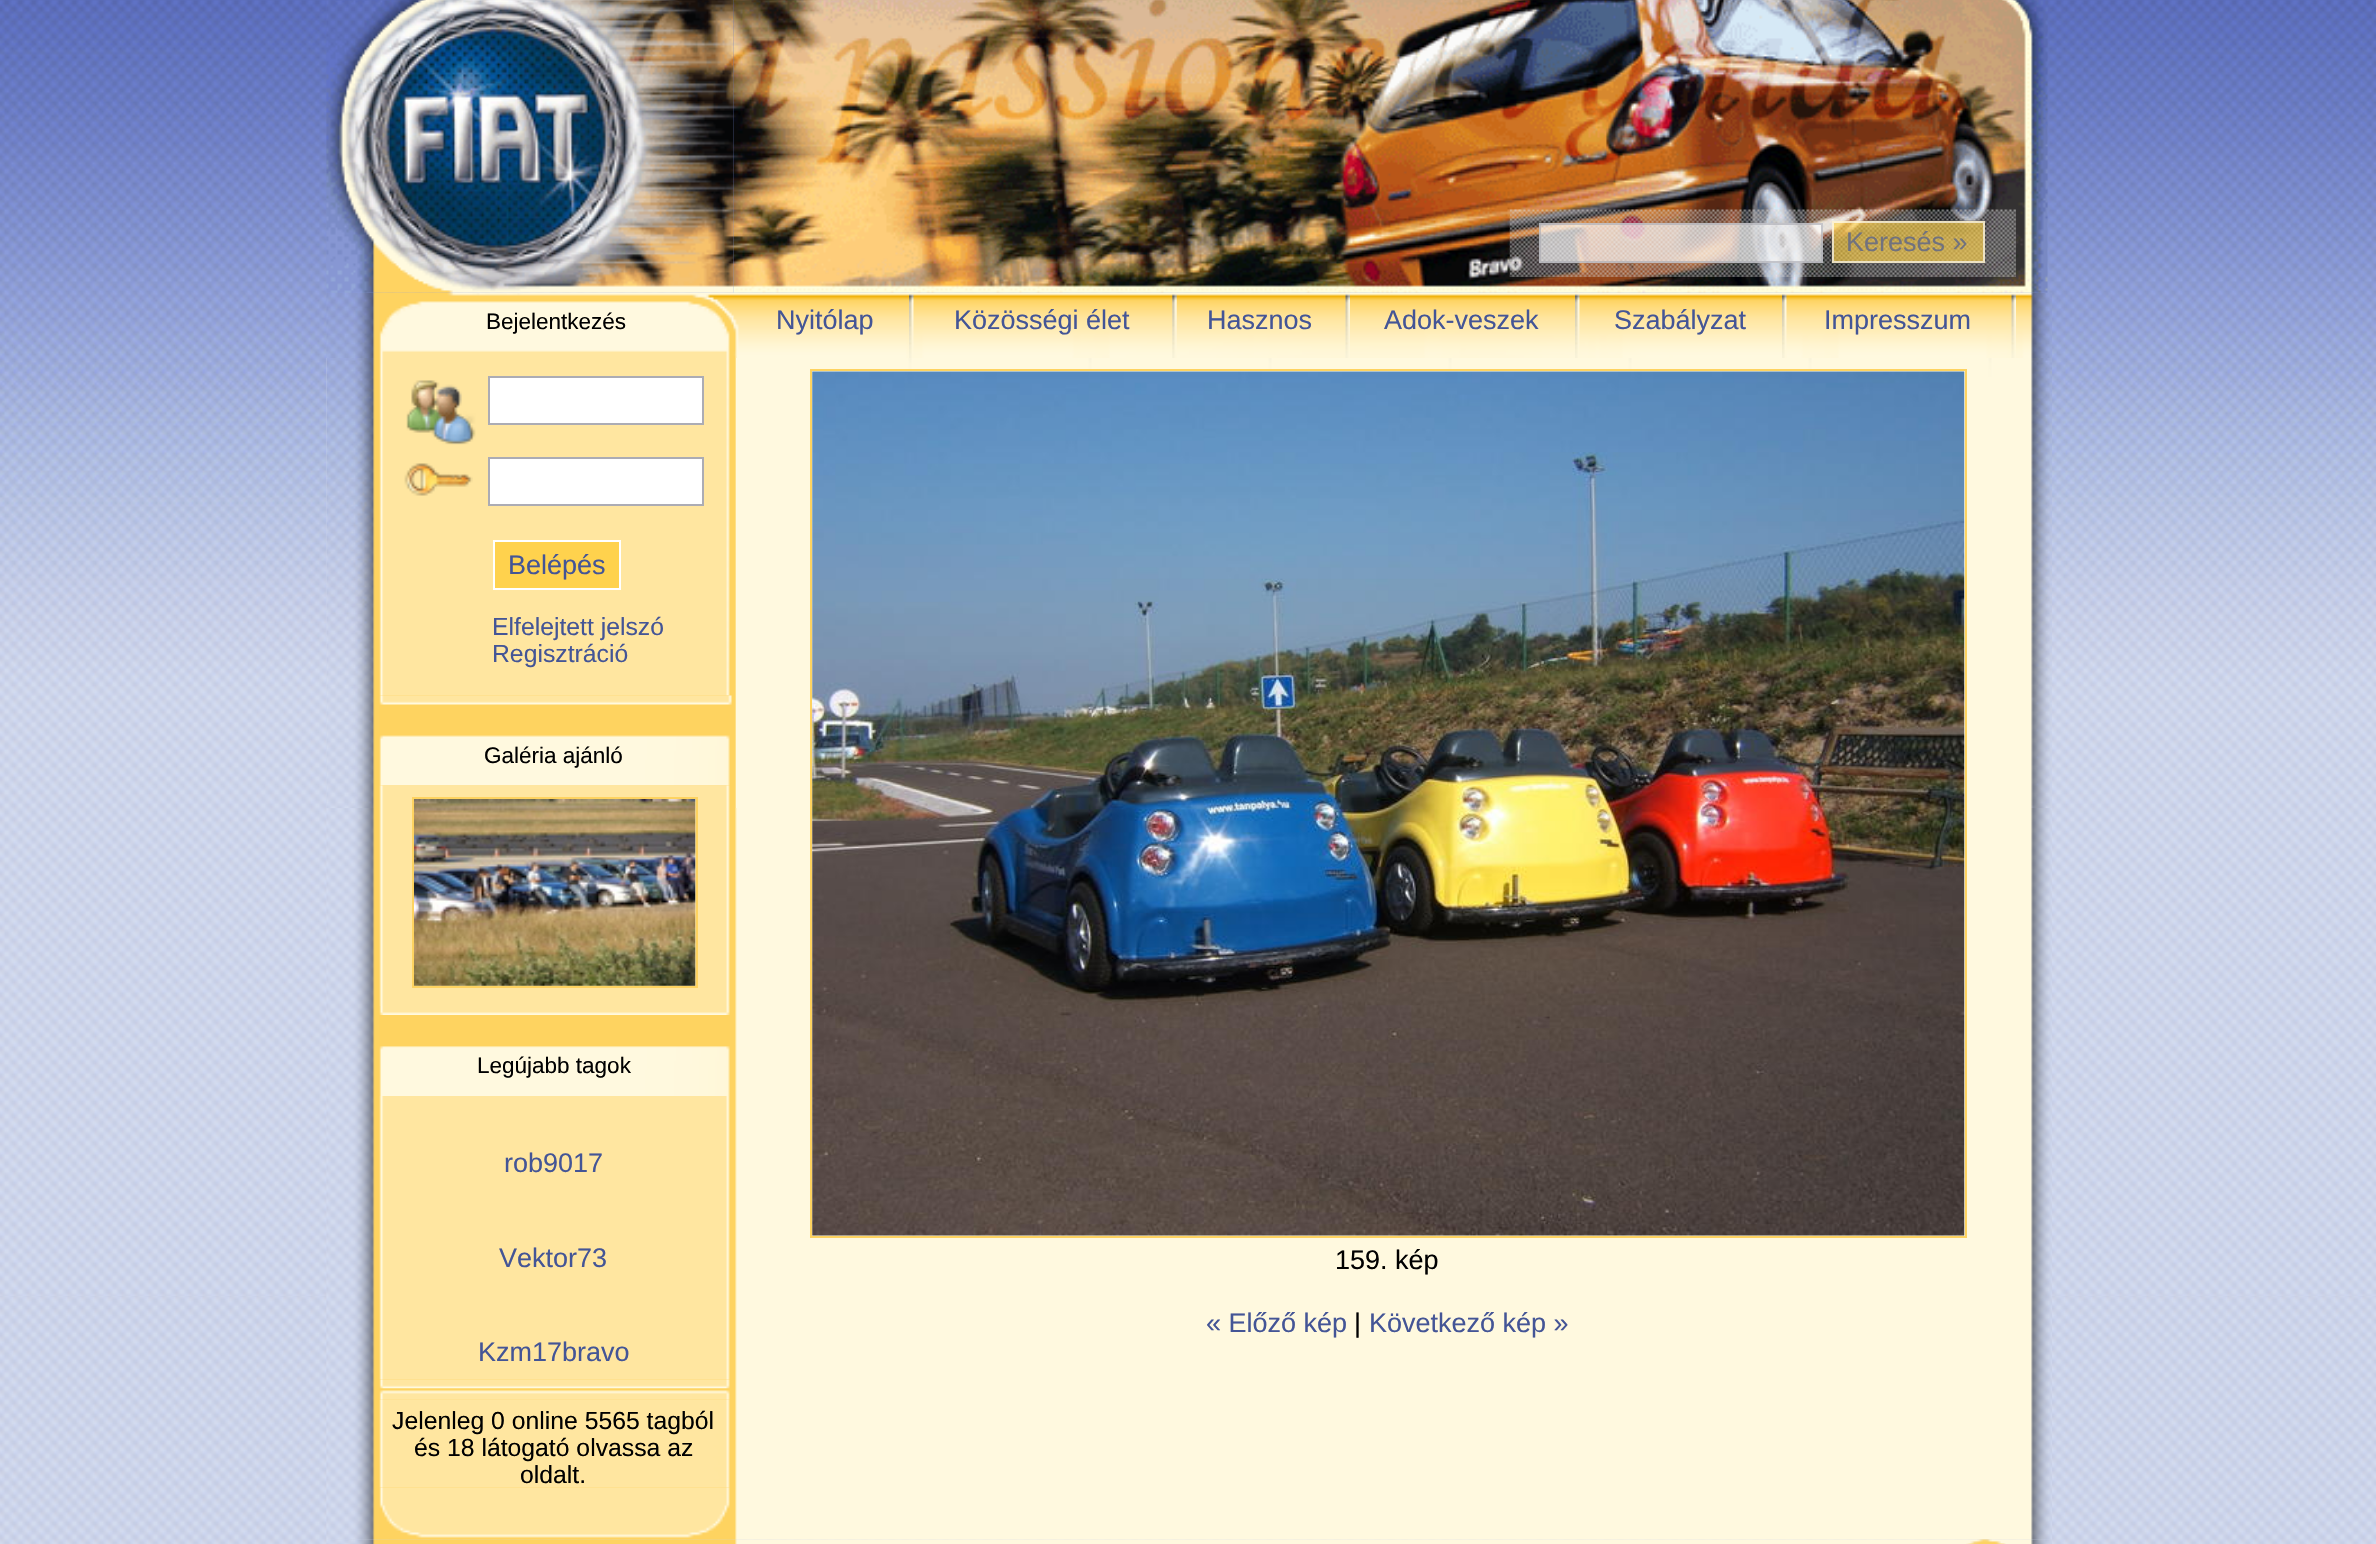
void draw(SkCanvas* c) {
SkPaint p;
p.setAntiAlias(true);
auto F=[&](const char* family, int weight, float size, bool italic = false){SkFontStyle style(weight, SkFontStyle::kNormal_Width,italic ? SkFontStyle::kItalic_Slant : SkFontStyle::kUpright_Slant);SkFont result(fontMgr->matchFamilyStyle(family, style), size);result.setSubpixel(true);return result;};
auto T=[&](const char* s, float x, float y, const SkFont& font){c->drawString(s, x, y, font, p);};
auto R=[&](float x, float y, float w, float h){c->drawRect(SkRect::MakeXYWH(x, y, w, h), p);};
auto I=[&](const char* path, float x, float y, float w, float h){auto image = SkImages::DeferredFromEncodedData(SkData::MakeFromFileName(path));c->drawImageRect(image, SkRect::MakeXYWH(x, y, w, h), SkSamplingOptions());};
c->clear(0xffffffff);
I("1.png",0,1296,2376,248);
I("2.png",0,0,2376,1296);
I("6.png",326,292,1726,66);
I("3.png",326,0,408,293);
I("4.png",733,0,1315,293);
I("5.png",1509,209,507,68);
p.setColor(0xa6ffffff);
R(1539,223,284,40);
p.setStroke(true);
p.setStrokeWidth(2);
p.setColor(0xa6acacb4);
c->drawRect(SkRect::MakeXYWH(1540,224,282,38),p);
p.setStroke(false);
p.setColor(0xa6ffd24d);
R(1832,221,153,42);
p.setStroke(true);
p.setColor(0xa6ffffff);
c->drawRect(SkRect::MakeXYWH(1833,222,151,40),p);
auto f1 = F("Liberation Sans",400,27);
p.setStroke(false);
p.setColor(0xff71727e);
T("Keresés »",1846,251,f1);
auto f2 = F("Liberation Sans",400,22.5);
p.setColor(0xff000000);
T("Bejelentkezés",486,329,f2);
p.setColor(0xff445596);
T("Nyitólap",776,329,f1);
I("7.png",909,292,5,66);
T("Közösségi élet",954,329,f1);
I("8.png",1172,292,5,66);
T("Hasznos",1207,329,f1);
I("9.png",1345,292,5,66);
T("Adok-veszek",1384,329,f1);
I("10.png",1575,292,5,66);
T("Szabályzat",1614,329,f1);
I("11.png",1782,292,5,66);
T("Impresszum",1824,329,f1);
I("12.png",2011,292,5,66);
I("31.png",326,1539,1726,5);
I("13.png",326,358,1726,1182);
I("14.png",326,358,410,450);
I("15.png",379,358,351,338);
I("16.png",406,380,70,65);
p.setColor(0xffffffff);
c->drawRect(SkRect::MakeXYWH(489,377,214,47),p);
p.setStroke(true);
p.setColor(0xffacacb4);
c->drawRect(SkRect::MakeXYWH(489,377,214,47),p);
I("17.png",404,463,69,33);
p.setStroke(false);
p.setColor(0xffffffff);
c->drawRect(SkRect::MakeXYWH(489,458,214,47),p);
p.setStroke(true);
p.setColor(0xffacacb4);
c->drawRect(SkRect::MakeXYWH(489,458,214,47),p);
p.setStroke(false);
p.setColor(0xffffd24d);
c->drawRect(SkRect::MakeXYWH(494,541,126,48),p);
p.setStroke(true);
p.setColor(0xffffffff);
c->drawRect(SkRect::MakeXYWH(494,541,126,48),p);
p.setStroke(false);
p.setColor(0xff445596);
T("Belépés",508,574,f1);
auto f3 = F("Liberation Sans",400,24.75);
T("Elfelejtett jelszó",492,635,f3);
T("Regisztráció",492,662,f3);
I("18.png",379,695,353,10);
I("19.png",379,735,351,51);
p.setColor(0xff000000);
T("Galéria ajánló",484,763,f2);
I("20.png",379,785,351,221);
p.setStroke(true);
p.setColor(0xfffed360);
c->drawRect(SkRect::MakeXYWH(413,798,284,189),p);
I("21.png",414,799,282,187);
I("22.png",379,1006,351,9);
I("23.png",379,1046,351,50);
p.setStroke(false);
p.setColor(0xff000000);
T("Legújabb tagok",477,1073,f2);
I("24.png",379,1096,351,284);
p.setColor(0xff445596);
T("rob9017",504,1172,f1);
T("Vektor73",499,1267,f1);
T("Kzm17bravo",478,1361,f1);
I("25.png",379,1379,351,10);
I("26.png",379,1388,351,12);
I("27.png",379,1399,351,89);
p.setColor(0xff000000);
T("Jelenleg 0 online 5565 tagból",392,1429,f3);
T("és 18 látogató olvassa az",414,1456,f3);
T("oldalt.",520,1483,f3);
I("28.png",379,1487,351,51);
I("29.png",735,358,1317,450);
p.setStroke(true);
p.setColor(0xfffed360);
c->drawRect(SkRect::MakeXYWH(811,370,1155,867),p);
I("30.png",812,371,1153,865);
p.setStroke(false);
p.setColor(0xff000000);
T("159. kép",1335,1269,f1);
p.setColor(0xff445596);
T("« Előző kép",1206,1332,f1);
p.setColor(0xff000000);
T("|",1354,1332,f1);
p.setColor(0xff445596);
T("Következő kép »",1369,1332,f1);
}
